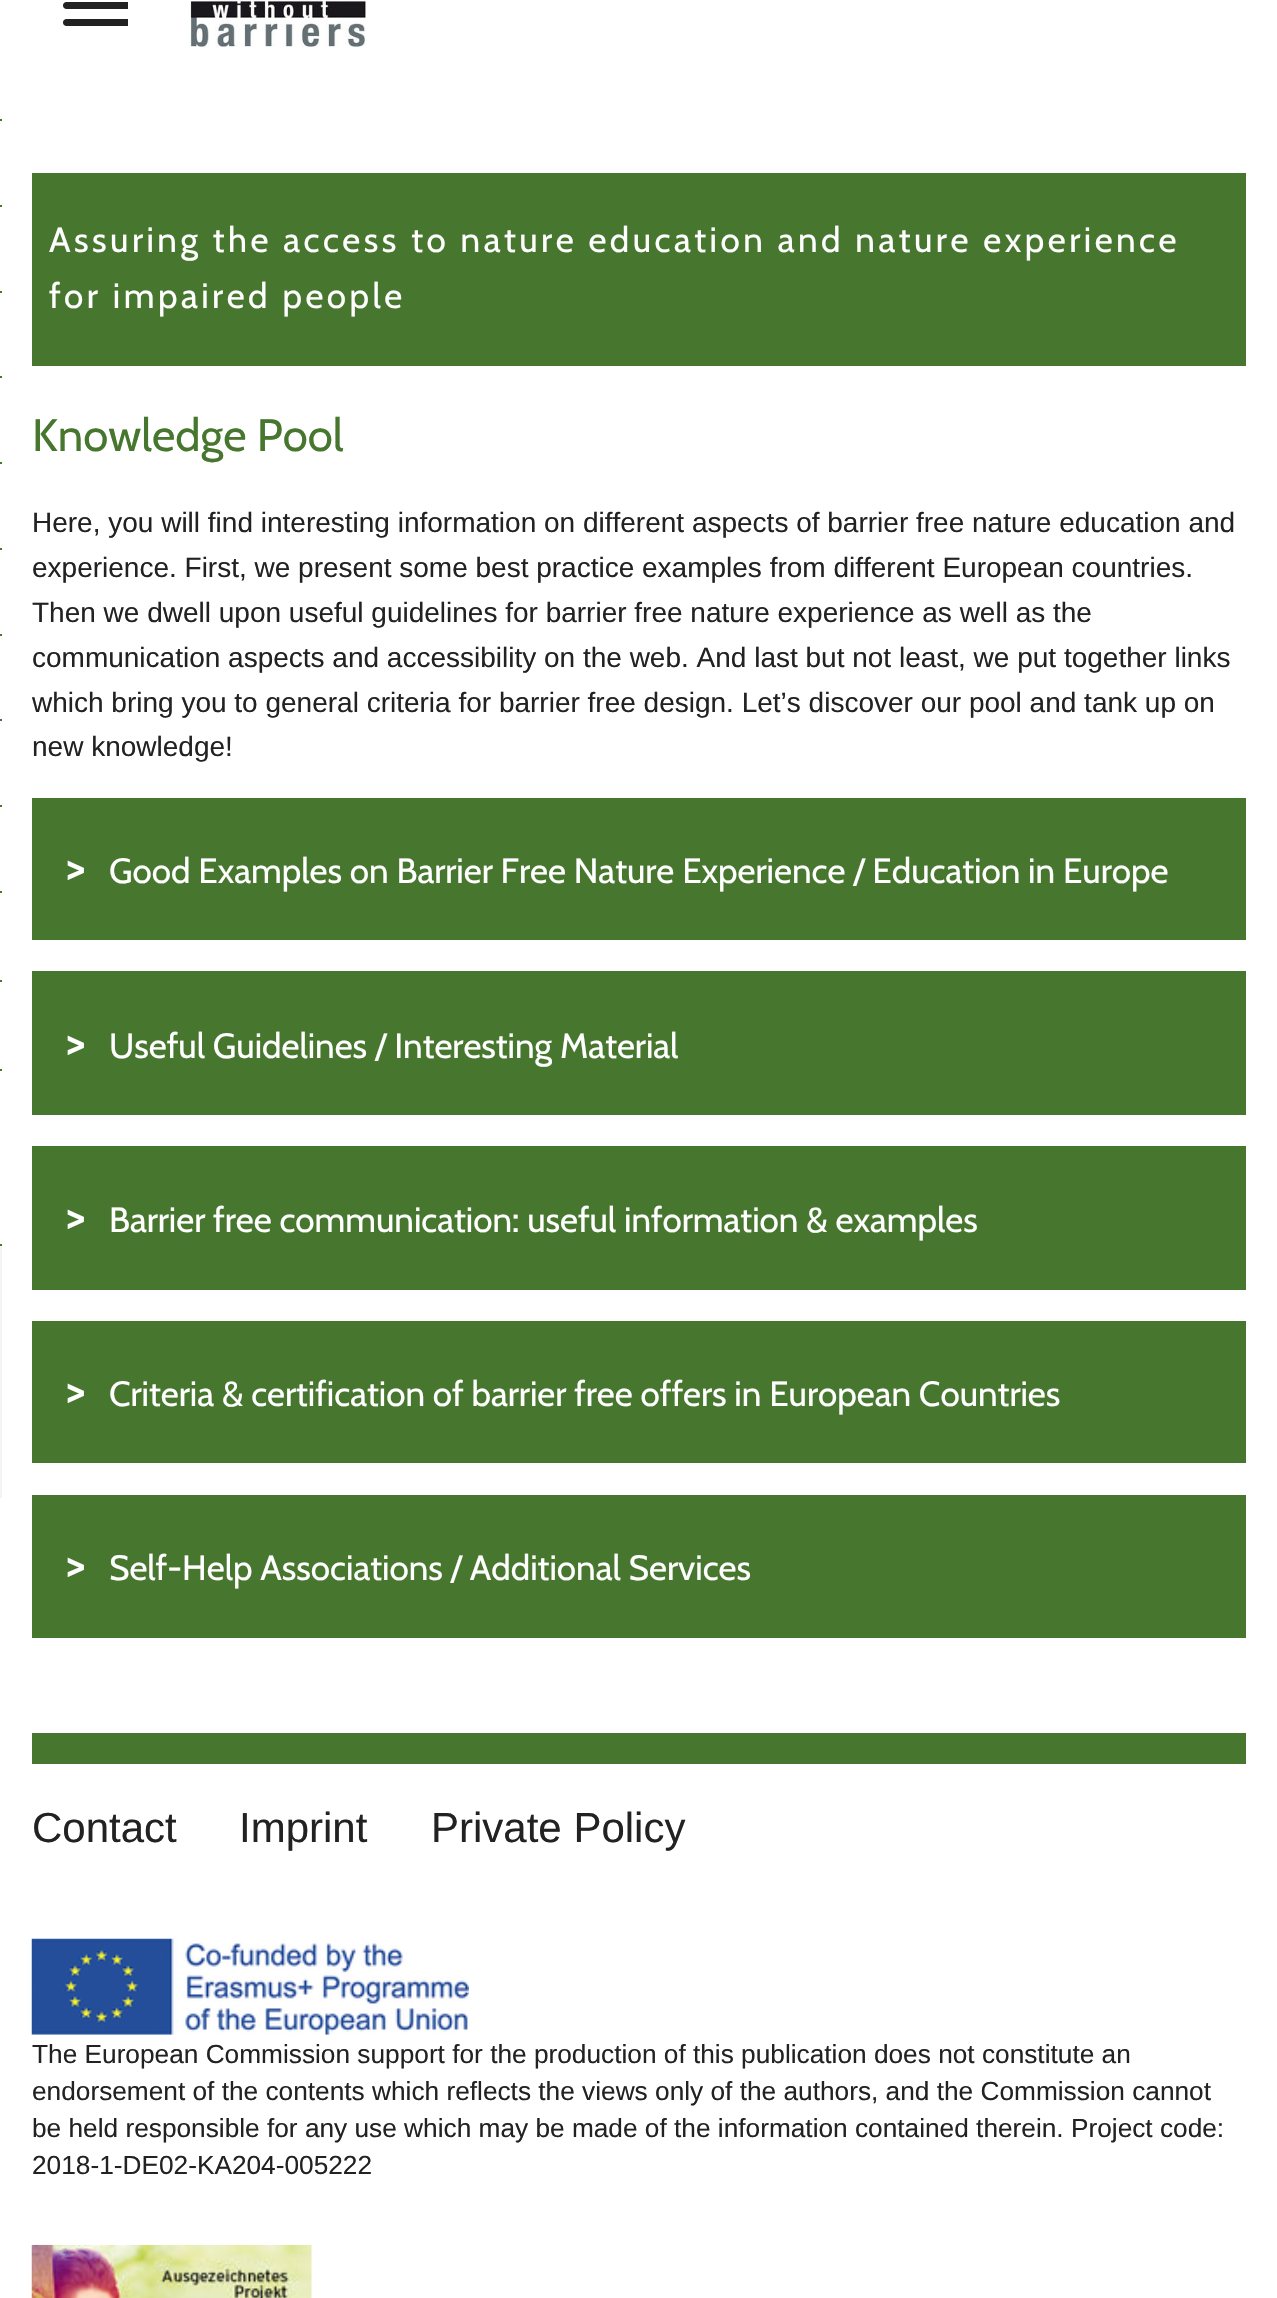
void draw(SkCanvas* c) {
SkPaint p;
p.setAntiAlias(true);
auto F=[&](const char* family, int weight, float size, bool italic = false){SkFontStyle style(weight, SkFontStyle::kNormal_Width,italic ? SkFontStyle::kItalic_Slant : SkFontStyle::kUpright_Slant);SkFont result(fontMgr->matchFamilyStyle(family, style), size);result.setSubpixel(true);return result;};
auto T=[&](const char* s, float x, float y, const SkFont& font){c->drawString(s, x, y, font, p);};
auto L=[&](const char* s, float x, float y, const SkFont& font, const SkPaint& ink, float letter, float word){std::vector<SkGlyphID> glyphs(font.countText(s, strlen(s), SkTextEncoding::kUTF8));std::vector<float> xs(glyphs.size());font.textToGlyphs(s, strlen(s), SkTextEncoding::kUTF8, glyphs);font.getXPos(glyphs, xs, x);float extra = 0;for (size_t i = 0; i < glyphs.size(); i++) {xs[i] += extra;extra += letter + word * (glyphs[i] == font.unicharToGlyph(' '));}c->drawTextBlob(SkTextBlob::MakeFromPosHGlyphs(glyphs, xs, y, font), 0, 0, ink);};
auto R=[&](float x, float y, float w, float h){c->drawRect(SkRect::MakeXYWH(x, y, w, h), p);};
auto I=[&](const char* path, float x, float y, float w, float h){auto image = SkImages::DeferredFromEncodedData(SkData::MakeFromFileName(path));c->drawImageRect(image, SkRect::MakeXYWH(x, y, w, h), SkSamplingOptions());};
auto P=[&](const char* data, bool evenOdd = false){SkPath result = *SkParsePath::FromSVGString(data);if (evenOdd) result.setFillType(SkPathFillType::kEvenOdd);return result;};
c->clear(0xffffffff);
p.setColor(0xff47762e);
R(0,119,2,2);
R(0,205,2,2);
R(0,291,2,2);
R(0,376,2,2);
R(0,462,2,2);
R(0,548,2,2);
R(0,634,2,2);
R(0,719,2,2);
R(0,805,2,2);
R(0,891,2,2);
R(0,980,2,2);
R(0,1069,2,2);
p.setColor(0xfff4f4f4);
R(0,1244,2,254);
p.setColor(0xff47762e);
R(0,1244,2,2);
p.setColor(0xff222222);
c->drawPath(P("M66.5 19h61.5v7h-61.5c-2 0-3.5-1.5-3.5-3.5c0-2 1.5-3.5 3.5-3.5z"),p);
c->drawPath(P("M66.5 2h61.5v7h-61.5c-2 0-3.5-1.5-3.5-3.5c0-2 1.5-3.5 3.5-3.5z"),p);
I("1.png",190,0,176,47);
p.setColor(0xff47762e);
R(32,173,1214,193);
auto f1 = F("Cabin",400,35);
p.setColor(0xffffffff);
L("Assuring the access to nature education and nature experience",49,252,f1,p,3.5,0);
L("for impaired people",49,308,f1,p,3.5,0);
auto f2 = F("Cabin",400,45.5);
p.setColor(0xff47762e);
T("Knowledge Pool",32,451,f2);
auto f3 = F("Liberation Sans",400,28);
p.setColor(0xff222222);
T("Here, you will find interesting information on different aspects of barrier free nature education and",32,532,f3);
T("experience. First, we present some best practice examples from different European countries.",32,577,f3);
T("Then we dwell upon useful guidelines for barrier free nature experience as well as the",32,622,f3);
T("communication aspects and accessibility on the web. And last but not least, we put together links",32,667,f3);
T("which bring you to general criteria for barrier free design. Let’s discover our pool and tank up on",32,712,f3);
T("new knowledge!",32,756,f3);
p.setStroke(true);
p.setStrokeWidth(2);
p.setColor(0xff47762e);
c->drawRect(SkRect::MakeXYWH(33,799,1212,140),p);
p.setStroke(false);
R(34,800,1210,138);
auto f4 = F("Cabin",700,45.5);
p.setColor(0xffffffff);
T(">",67,883,f4);
T("Good Examples on Barrier Free Nature Experience / Education in Europe",109,883,f1);
p.setStroke(true);
p.setColor(0xff47762e);
c->drawRect(SkRect::MakeXYWH(33,972,1212,142),p);
p.setStroke(false);
R(34,973,1210,140);
p.setColor(0xffffffff);
T(">",67,1058,f4);
T("Useful Guidelines / Interesting Material",109,1058,f1);
p.setStroke(true);
p.setColor(0xff47762e);
c->drawRect(SkRect::MakeXYWH(33,1147,1212,142),p);
p.setStroke(false);
R(34,1148,1210,140);
p.setColor(0xffffffff);
T(">",67,1232,f4);
T("Barrier free communication: useful information & examples",109,1232,f1);
p.setStroke(true);
p.setColor(0xff47762e);
c->drawRect(SkRect::MakeXYWH(33,1322,1212,140),p);
p.setStroke(false);
R(34,1323,1210,138);
p.setColor(0xffffffff);
T(">",67,1406,f4);
T("Criteria & certification of barrier free offers in European Countries",109,1406,f1);
p.setStroke(true);
p.setColor(0xff47762e);
c->drawRect(SkRect::MakeXYWH(33,1496,1212,141),p);
p.setStroke(false);
R(34,1497,1210,139);
p.setColor(0xffffffff);
T(">",67,1580,f4);
T("Self-Help Associations / Additional Services",109,1580,f1);
p.setColor(0xff47762e);
R(32,1733,1214,31);
auto f5 = F("Liberation Sans",400,42);
p.setColor(0xff222222);
T("Contact",32,1842,f5);
T("Imprint",239,1842,f5);
T("Private Policy",431,1842,f5);
I("2.png",31,1938,438,97);
auto f6 = F("Liberation Sans",400,26.25);
T("The European Commission support for the production of this publication does not constitute an",32,2063,f6);
T("endorsement of the contents which reflects the views only of the authors, and the Commission cannot",32,2100,f6);
T("be held responsible for any use which may be made of the information contained therein. Project code:",32,2137,f6);
T("2018-1-DE02-KA204-005222",32,2174,f6);
I("3.png",31,2244,281,54);
}
